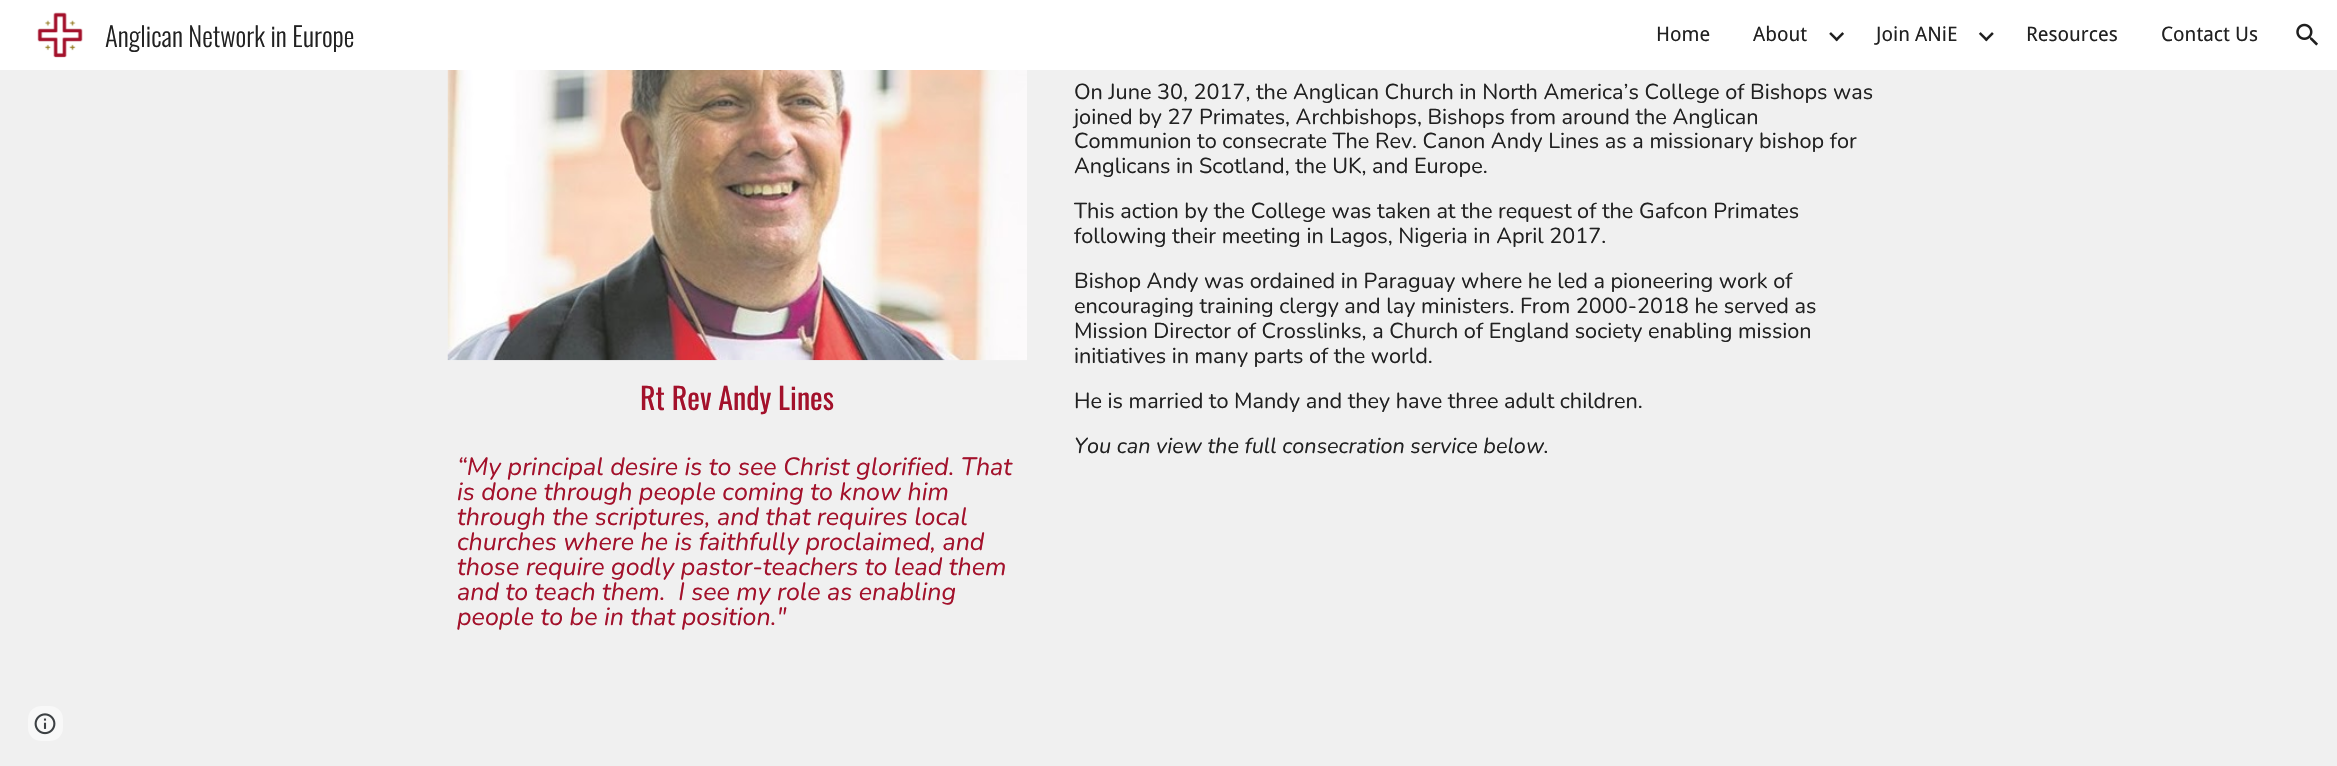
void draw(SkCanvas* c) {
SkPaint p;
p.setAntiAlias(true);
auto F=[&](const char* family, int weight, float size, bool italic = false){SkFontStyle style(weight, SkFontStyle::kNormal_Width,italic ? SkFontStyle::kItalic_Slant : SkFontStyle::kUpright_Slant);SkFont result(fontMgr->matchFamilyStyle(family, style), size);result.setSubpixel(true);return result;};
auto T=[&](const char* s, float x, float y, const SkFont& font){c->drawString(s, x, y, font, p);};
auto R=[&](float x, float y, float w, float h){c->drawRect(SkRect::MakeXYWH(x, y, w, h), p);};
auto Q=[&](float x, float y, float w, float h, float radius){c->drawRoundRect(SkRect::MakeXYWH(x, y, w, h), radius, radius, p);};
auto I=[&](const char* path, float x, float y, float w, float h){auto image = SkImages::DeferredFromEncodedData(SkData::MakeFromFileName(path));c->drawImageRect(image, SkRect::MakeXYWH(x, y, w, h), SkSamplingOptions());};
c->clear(0xfff0f0f0);
p.setColor(0xffffffff);
R(0,0,2337,70);
I("1.png",37,12,46,46);
auto f1 = F("Oswald",300,26.75);
p.setColor(0xff212121);
T("Anglican Network in Europe",105,47,f1);
auto f2 = F("Droid Sans",400,20);
T("Home",1656,41,f2);
T("About",1753,41,f2);
I("2.png",1829,32,15,10);
T("Join ANiE",1876,41,f2);
I("3.png",1978,32,16,10);
T("Resources",2026,41,f2);
T("Contact Us",2161,41,f2);
I("4.png",2296,23,22,23);
auto f3 = F("Nunito",400,21.65);
T("On June 30, 2017, the Anglican Church in North America’s College of Bishops was",1074,99,f3);
T("joined by 27 Primates, Archbishops, Bishops from around the Anglican",1074,124,f3);
T("Communion to consecrate The Rev. Canon Andy Lines as a missionary bishop for",1074,148,f3);
T("Anglicans in Scotland, the UK, and Europe.",1074,173,f3);
T("This action by the College was taken at the request of the Gafcon Primates",1074,218,f3);
T("following their meeting in Lagos, Nigeria in April 2017.",1074,243,f3);
T("Bishop Andy was ordained in Paraguay where he led a pioneering work of",1074,288,f3);
T("encouraging training clergy and lay ministers. From 2000-2018 he served as",1074,313,f3);
T("Mission Director of Crosslinks, a Church of England society enabling mission",1074,338,f3);
T("initiatives in many parts of the world.",1074,363,f3);
T("He is married to Mandy and they have three adult children.",1074,408,f3);
auto f4 = F("Nunito",400,21.65,true);
T("You can view the full consecration service below.",1074,453,f4);
I("5.png",447,70,580,291);
auto f5 = F("Oswald",400,30);
p.setColor(0xffa3112b);
T("Rt Rev Andy Lines",640,410,f5);
auto f6 = F("Nunito",400,25,true);
T("“My principal desire is to see Christ glorified. That",457,475,f6);
T("is done through people coming to know him",457,500,f6);
T("through the scriptures, and that requires local",457,525,f6);
T("churches where he is faithfully proclaimed, and",457,550,f6);
T("those require godly pastor-teachers to lead them",457,575,f6);
T("and to teach them.  I see my role as enabling",457,600,f6);
T("people to be in that position.\"",457,625,f6);
p.setColor(0xfff8f8f8);
Q(28,706,35,35,13);
I("6.png",34,713,22,22);
}
